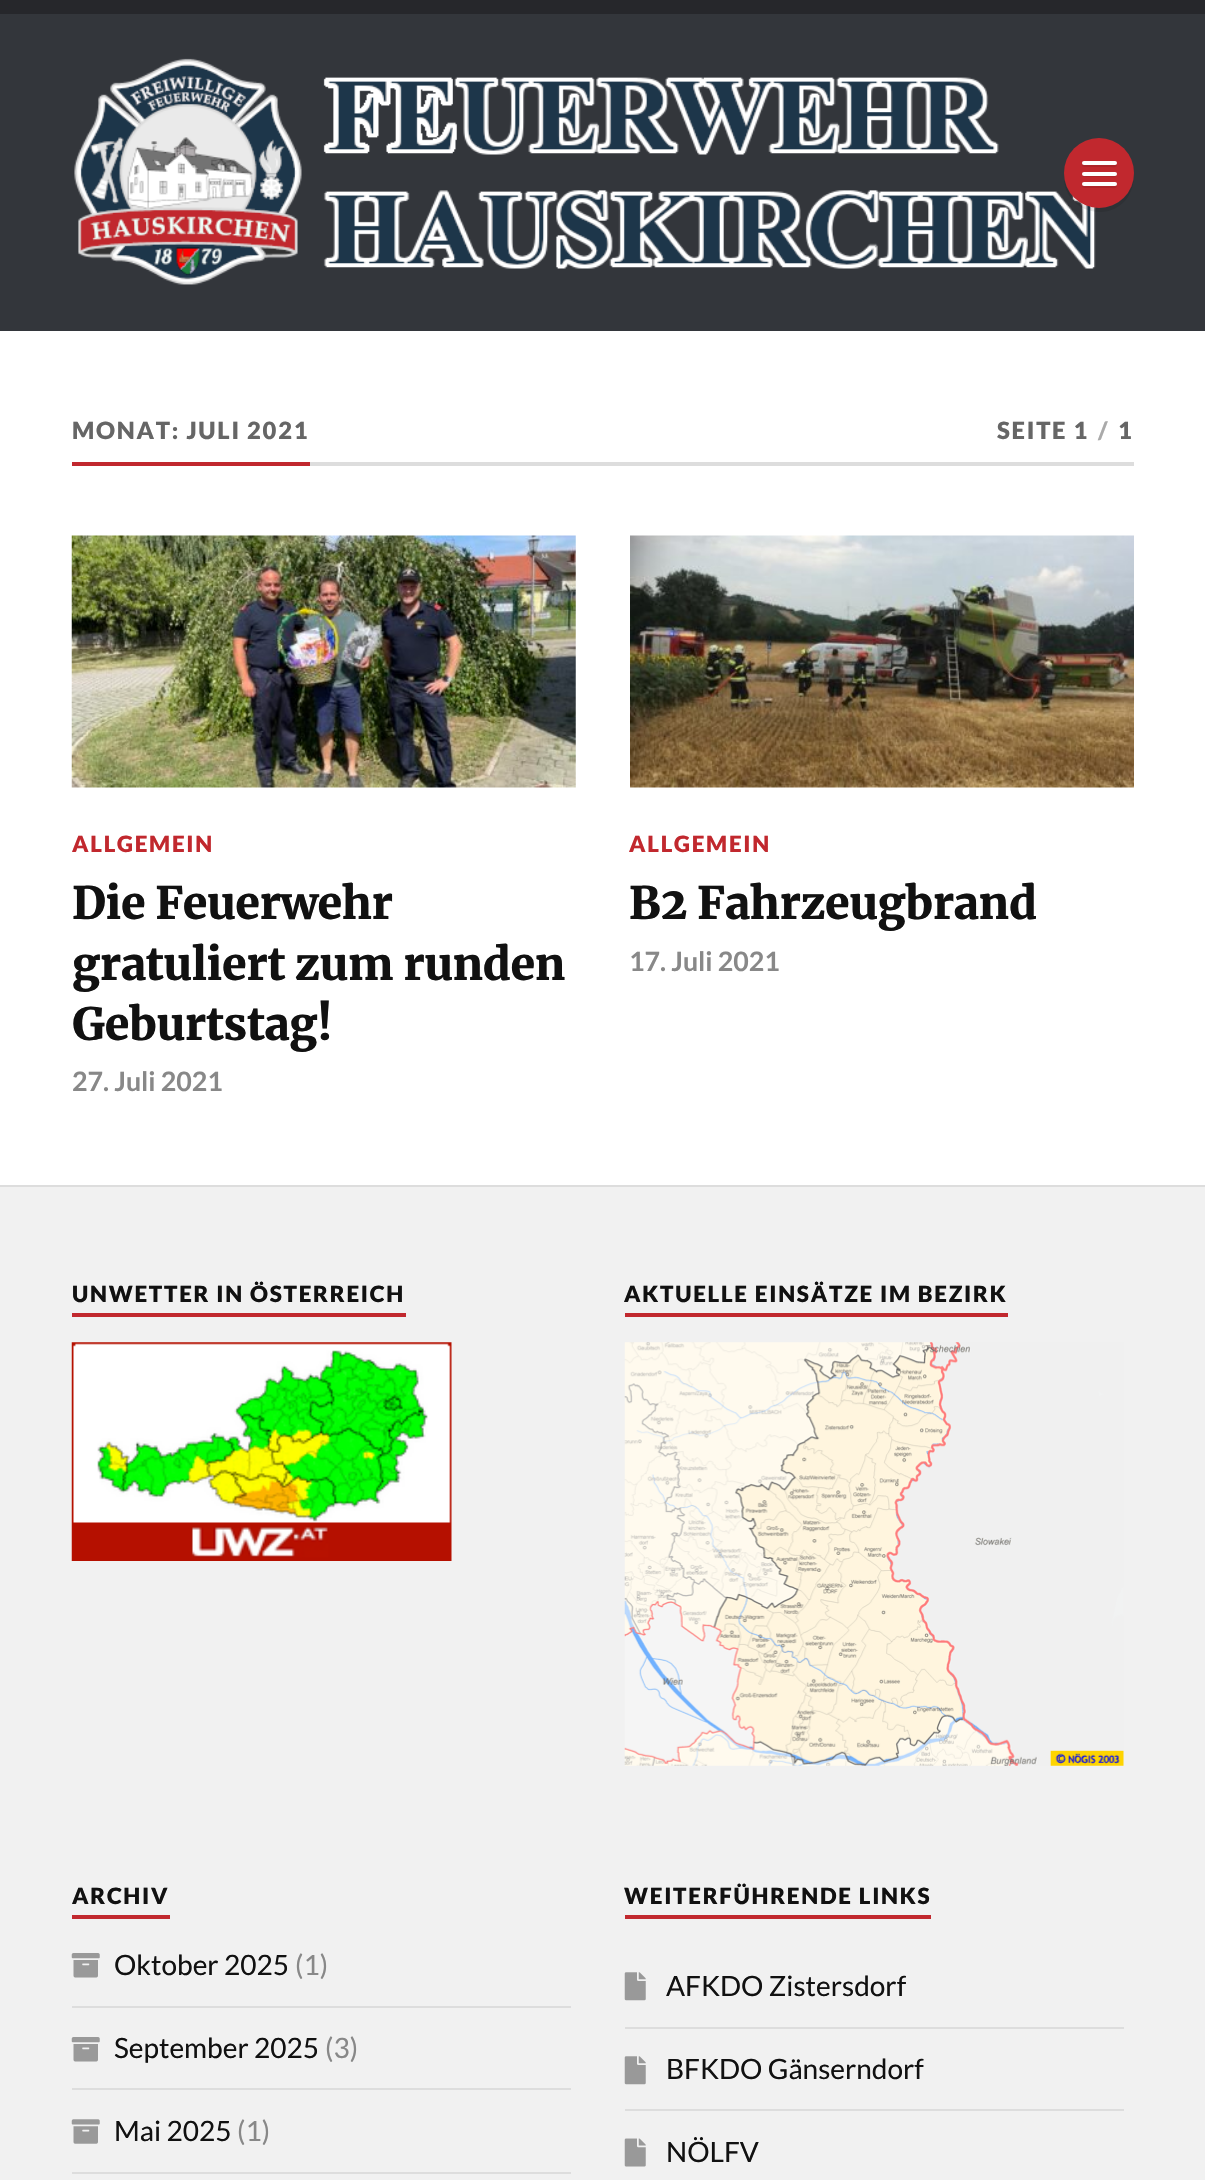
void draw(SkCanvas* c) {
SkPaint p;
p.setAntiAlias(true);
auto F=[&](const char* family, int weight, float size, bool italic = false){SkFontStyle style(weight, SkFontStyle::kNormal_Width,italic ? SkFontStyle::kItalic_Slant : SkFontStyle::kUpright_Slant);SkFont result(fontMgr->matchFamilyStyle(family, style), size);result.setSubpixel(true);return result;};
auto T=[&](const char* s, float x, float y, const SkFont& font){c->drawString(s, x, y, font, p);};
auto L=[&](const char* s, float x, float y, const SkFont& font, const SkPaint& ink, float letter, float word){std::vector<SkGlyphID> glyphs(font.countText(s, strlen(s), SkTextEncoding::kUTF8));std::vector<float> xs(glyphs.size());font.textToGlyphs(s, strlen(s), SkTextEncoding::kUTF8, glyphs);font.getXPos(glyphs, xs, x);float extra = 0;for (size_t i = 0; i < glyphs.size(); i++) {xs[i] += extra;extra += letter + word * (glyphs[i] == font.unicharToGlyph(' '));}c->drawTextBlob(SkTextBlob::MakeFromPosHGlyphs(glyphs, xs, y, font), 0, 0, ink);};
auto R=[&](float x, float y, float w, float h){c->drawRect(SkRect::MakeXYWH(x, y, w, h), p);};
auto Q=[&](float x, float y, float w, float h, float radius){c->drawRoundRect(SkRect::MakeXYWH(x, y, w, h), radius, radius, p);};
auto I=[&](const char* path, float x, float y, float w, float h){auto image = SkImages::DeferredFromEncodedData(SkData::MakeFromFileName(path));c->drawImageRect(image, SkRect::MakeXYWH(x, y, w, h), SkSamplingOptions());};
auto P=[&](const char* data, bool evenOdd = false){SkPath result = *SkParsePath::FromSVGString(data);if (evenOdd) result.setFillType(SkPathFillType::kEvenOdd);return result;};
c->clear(0xffffffff);
p.setColor(0xff33363b);
R(0,14,1205,317);
p.setColor(0xff26272b);
R(0,0,1205,14);
I("1.png",74,58,1022,227);
p.setColor(0x1a000000);
c->drawPath(P("M1064 175c-2 35 44 51 64 22c4-7 6-14 6-22c-1 19-16 33-35 33c-19 0-34-14-35-33z"),p);
p.setColor(0xffc1282e);
c->drawCircle(1099,173,35,p);
p.setColor(0xffae2429);
c->drawPath(P("M1082 164c-1.5 4 6.5 3 7 3h21c1 0 6.5 1 7-1.5c0-1 0-1.5-.5-2c-1 2-6.5 1-7 1c-3.5 0-26 .5-27.5-.5z"),p);
p.setColor(0xffffffff);
Q(1082,161,35,4,2);
p.setColor(0xffae2429);
c->drawPath(P("M1082 174.5c-1 3.5 6.5 2.5 7 2.5h21c1 0 6.5 1 7-1.5c0-.5 0-1.5-.5-2c0 1-1 1.5-1.5 1.5h-32z"),p);
p.setColor(0xffffffff);
Q(1082,172,35,4,2);
p.setColor(0xffae2429);
c->drawPath(P("M1082 185c-1.5 4 6.5 3 7 3h21c1 0 6.5 1 7-1.5c0-1 0-1.5-.5-2c-1 2-6.5 1-7 1c-3.5 0-26 .5-27.5-.5z"),p);
p.setColor(0xffffffff);
Q(1082,182,35,4,2);
p.setColor(0xffdddddd);
R(310,462,824,4);
p.setColor(0xffc1282e);
R(72,462,238,4);
auto f1 = F("Lato",900,23.75);
p.setColor(0xff666666);
L("MONAT: JULI 2021",72,439,f1,p,1.75,0);
L("SEITE 1",997,439,f1,p,1.75,0);
p.setColor(0xffaaaaaa);
L("/",1098,439,f1,p,1.75,0);
p.setColor(0xff666666);
L("1",1118,439,f1,p,1.75,0);
I("2.png",71,535,505,253);
auto f2 = F("Lato",900,22.4);
p.setColor(0xffc1282e);
L("ALLGEMEIN",72,852,f2,p,1.75,0);
auto f3 = F("Merriweather",900,44.6);
p.setColor(0xff111111);
L("Die Feuerwehr",72,919,f3,p,-.45,0);
L("gratuliert zum runden",72,980,f3,p,-.45,0);
L("Geburtstag!",72,1040,f3,p,-.45,0);
auto f4 = F("Lato",700,26.75);
p.setColor(0xff888888);
T("27. Juli 2021",72,1091,f4);
I("3.png",630,535,504,253);
p.setColor(0xffc1282e);
L("ALLGEMEIN",629,852,f2,p,1.75,0);
p.setColor(0xff111111);
L("B2 Fahrzeugbrand",629,919,f3,p,-.45,0);
p.setColor(0xff888888);
T("17. Juli 2021",629,971,f4);
p.setColor(0xfff1f1f1);
R(0,1187,1205,993);
p.setColor(0xffdddddd);
R(0,1185,1205,2);
p.setColor(0xffc1282e);
R(72,1313,334,4);
p.setColor(0xff111111);
L("UNWETTER IN ÖSTERREICH",72,1302,f2,p,1.75,0);
I("4.png",71,1342,381,219);
p.setColor(0xffc1282e);
R(625,1313,383,4);
p.setColor(0xff111111);
L("AKTUELLE EINSÄTZE IM BEZIRK",624,1302,f2,p,1.75,0);
I("5.png",624,1342,500,424);
p.setColor(0xffc1282e);
R(72,1915,98,4);
p.setColor(0xff111111);
L("ARCHIV",72,1904,f2,p,1.75,0);
p.setColor(0xffdddddd);
R(72,2006,499,2);
I("6.png",71,1953,29,25);
auto f5 = F("Lato",400,28);
p.setColor(0xff111111);
T("Oktober 2025",114,1975,f5);
p.setColor(0xff888888);
T("(1)",295,1975,f5);
p.setColor(0xffdddddd);
R(72,2088,499,2);
I("6.png",71,2037,29,25);
p.setColor(0xff111111);
T("September 2025",114,2058,f5);
p.setColor(0xff888888);
T("(3)",325,2058,f5);
p.setColor(0xffdddddd);
R(72,2172,499,2);
I("7.png",71,2119,29,25);
p.setColor(0xff111111);
T("Mai 2025",114,2141,f5);
p.setColor(0xff888888);
T("(1)",237,2141,f5);
p.setColor(0xffc1282e);
R(625,1915,306,4);
p.setColor(0xff111111);
L("WEITERFÜHRENDE LINKS",624,1904,f2,p,1.75,0);
p.setColor(0xffdddddd);
R(625,2027,499,2);
I("8.png",624,1972,22,29);
p.setColor(0xff111111);
T("AFKDO Zistersdorf",666,1996,f5);
p.setColor(0xffdddddd);
R(625,2109,499,2);
I("8.png",624,2056,22,29);
p.setColor(0xff111111);
T("BFKDO Gänserndorf",666,2079,f5);
I("9.png",624,2138,22,29);
T("NÖLFV",666,2162,f5);
}
